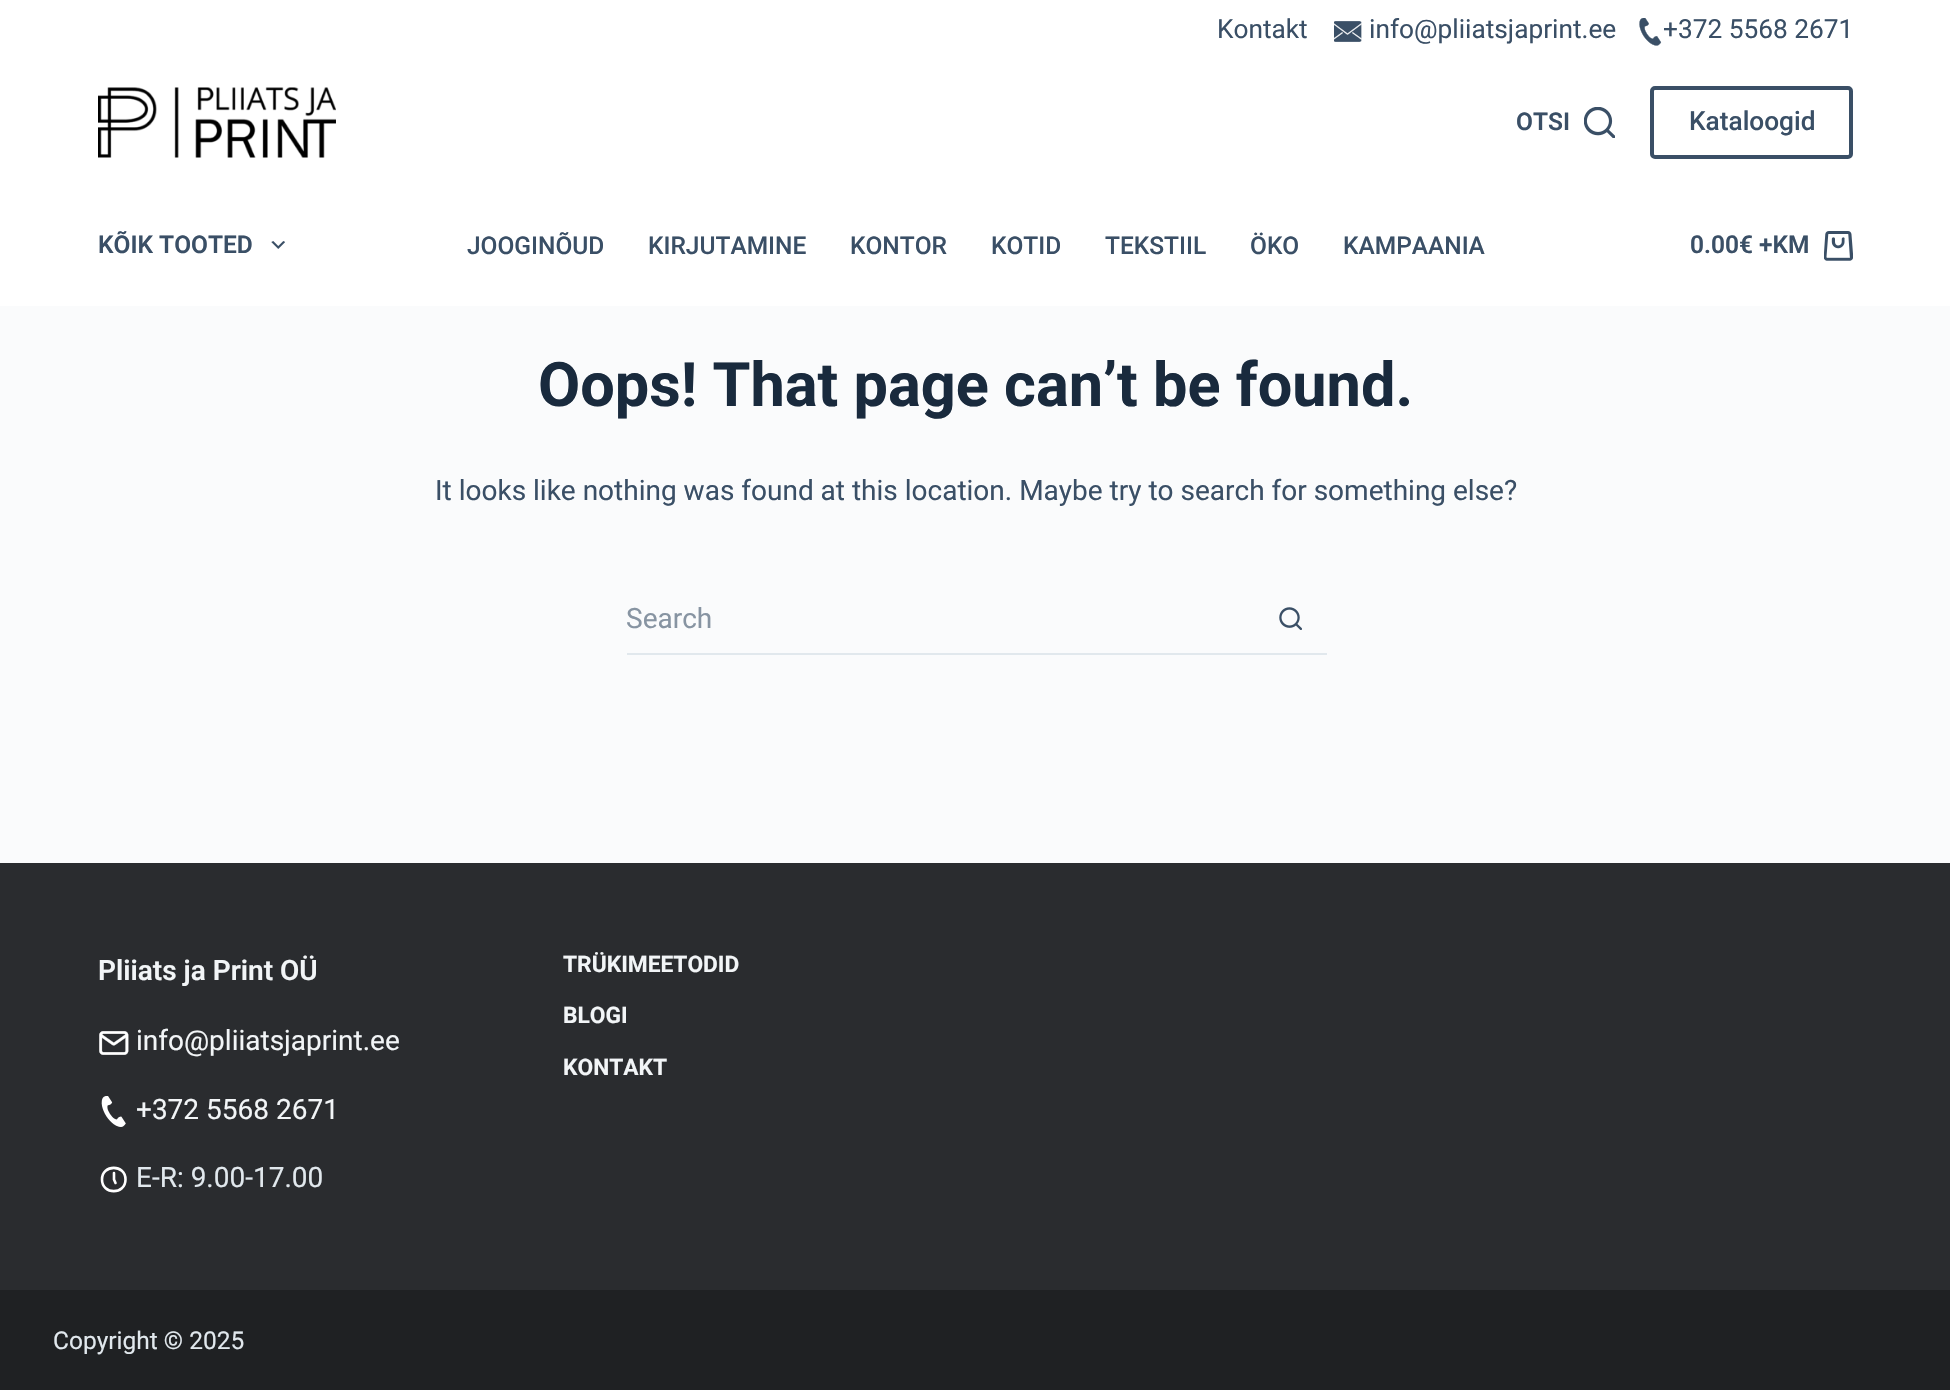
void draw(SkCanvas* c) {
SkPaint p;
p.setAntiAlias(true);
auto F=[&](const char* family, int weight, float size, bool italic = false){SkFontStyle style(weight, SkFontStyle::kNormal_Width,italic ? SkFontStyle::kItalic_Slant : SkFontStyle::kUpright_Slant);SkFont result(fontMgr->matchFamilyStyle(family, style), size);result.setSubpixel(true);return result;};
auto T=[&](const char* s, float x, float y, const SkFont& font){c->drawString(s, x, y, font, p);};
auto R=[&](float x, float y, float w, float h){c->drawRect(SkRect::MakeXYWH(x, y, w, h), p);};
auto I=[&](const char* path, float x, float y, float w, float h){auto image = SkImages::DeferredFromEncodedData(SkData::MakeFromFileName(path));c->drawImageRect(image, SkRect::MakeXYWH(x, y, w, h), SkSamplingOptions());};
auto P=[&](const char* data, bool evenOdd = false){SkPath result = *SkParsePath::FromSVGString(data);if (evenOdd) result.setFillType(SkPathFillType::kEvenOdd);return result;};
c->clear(0xfffafbfc);
p.setColor(0xffffffff);
R(0,0,1950,306);
auto f1 = F("Roboto",400,26.25);
p.setColor(0xff3a4f66);
T("Kontakt",1217,38,f1);
I("1.png",1334,21,28,21);
T("info@pliiatsjaprint.ee",1369,38,f1);
I("2.png",1639,18,23,28);
T("+372 5568 2671",1663,38,f1);
I("3.png",98,87,238,71);
auto f2 = F("Roboto",600,24.5);
T("OTSI",1516,130,f2);
I("4.png",1584,107,31,31);
p.setStroke(true);
p.setStrokeWidth(4);
c->drawRoundRect(SkRect::MakeXYWH(1652,88,199,69),3,3,p);
auto f3 = F("Roboto",500,26.25);
p.setStroke(false);
T("Kataloogid",1689,130,f3);
T("KÕIK TOOTED",98,253,f2);
I("5.png",271,241,14,8);
auto f4 = F("Roboto",500,24.5);
T("JOOGINÕUD",467,254,f4);
T("KIRJUTAMINE",648,254,f4);
T("KONTOR",850,254,f4);
T("KOTID",991,254,f4);
T("TEKSTIIL",1105,254,f4);
T("ÖKO",1250,254,f4);
T("KAMPAANIA",1343,254,f4);
T("0.00€ +KM",1690,253,f2);
I("6.png",1824,231,29,30);
auto f5 = F("Roboto",700,61.25);
p.setColor(0xff192a3d);
T("Oops! That page can’t be found.",538,406,f5);
auto f6 = F("Roboto",400,28);
p.setColor(0xff3a4f66);
T("It looks like nothing was found at this location. Maybe try to search for something else?",435,500,f6);
p.setColor(0xffe1e8ed);
R(627,653,700,2);
p.setColor(0xff8794a2);
T("Search",626,628,f6);
I("7.png",1279,607,23,23);
p.setColor(0xff2a2c2f);
R(0,863,1950,427);
auto f7 = F("Roboto",600,28);
p.setColor(0xfff2f5f7);
T("Pliiats ja Print OÜ",98,980,f7);
I("8.png",99,1031,30,24);
T("info@pliiatsjaprint.ee",136,1050,f6);
I("9.png",101,1096,25,31);
T("+372 5568 2671",136,1119,f6);
p.setStroke(true);
p.setStrokeWidth(2.6);
p.setStrokeCap(SkPaint::kRound_Cap);
p.setStrokeJoin(SkPaint::kRound_Join);
p.setColor(0xffffffff);
c->drawPath(P("M114 1173v6.5l1.5 3.5m10-3.5c0 15.5-23.5 15.5-23.5 0c0-15.5 23.5-15.5 23.5 0z"),p);
p.setStroke(false);
p.setColor(0xffe1e8ed);
T("E-R: 9.00-17.00",136,1187,f6);
auto f8 = F("Roboto",700,22.75);
p.setColor(0xfff2f5f7);
T("TRÜKIMEETODID",563,972,f8);
T("BLOGI",563,1023,f8);
T("KONTAKT",563,1075,f8);
p.setColor(0xff1f2123);
R(0,1290,1950,100);
auto f9 = F("Roboto",400,24.5);
p.setColor(0xffe1e8ed);
T("Copyright © 2025",53,1349,f9);
}
